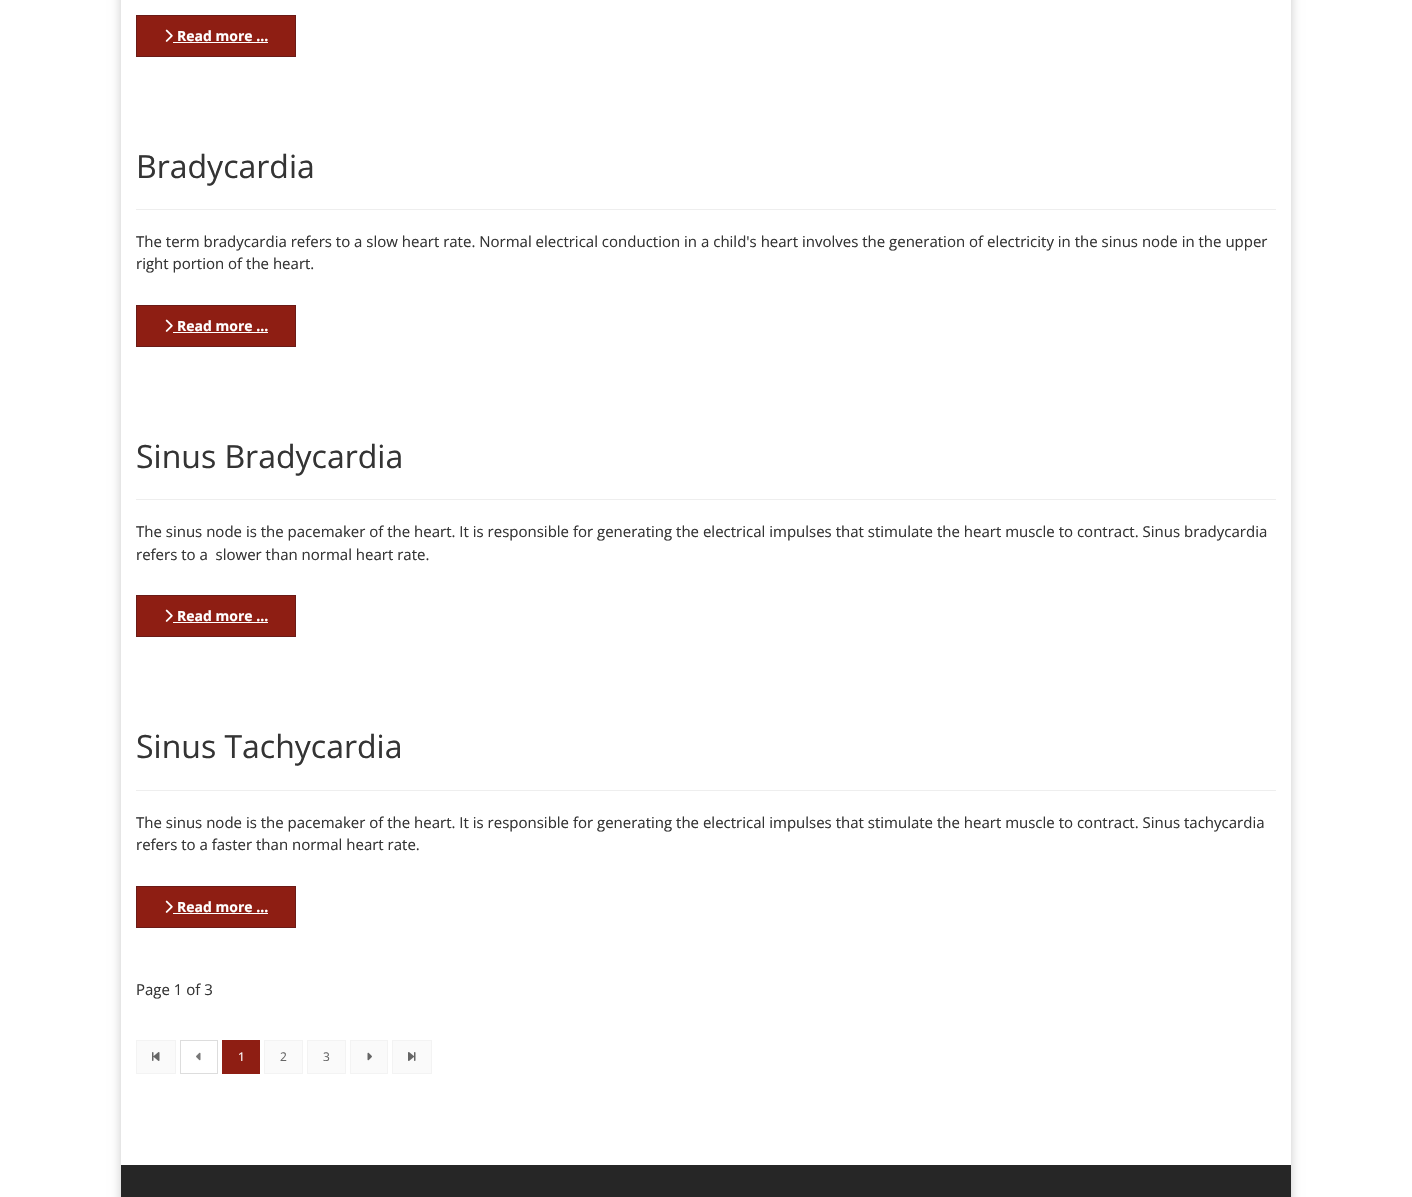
void draw(SkCanvas* c) {
SkPaint p;
p.setAntiAlias(true);
auto F=[&](const char* family, int weight, float size, bool italic = false){SkFontStyle style(weight, SkFontStyle::kNormal_Width,italic ? SkFontStyle::kItalic_Slant : SkFontStyle::kUpright_Slant);SkFont result(fontMgr->matchFamilyStyle(family, style), size);result.setSubpixel(true);return result;};
auto T=[&](const char* s, float x, float y, const SkFont& font){c->drawString(s, x, y, font, p);};
auto R=[&](float x, float y, float w, float h){c->drawRect(SkRect::MakeXYWH(x, y, w, h), p);};
auto I=[&](const char* path, float x, float y, float w, float h){auto image = SkImages::DeferredFromEncodedData(SkData::MakeFromFileName(path));c->drawImageRect(image, SkRect::MakeXYWH(x, y, w, h), SkSamplingOptions());};
auto P=[&](const char* data, bool evenOdd = false){SkPath result = *SkParsePath::FromSVGString(data);if (evenOdd) result.setFillType(SkPathFillType::kEvenOdd);return result;};
c->clear(0xffffffff);
c->save();
c->clipPath(P("M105 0h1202v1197h-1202zm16-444h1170v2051h-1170z",true),true);
p.setColor(0xffcacaca);
p.setMaskFilter(SkMaskFilter::MakeBlur(kNormal_SkBlurStyle, 5));
c->drawRect(SkRect::MakeXYWH(121,-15,1170,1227),p);
p.setMaskFilter(nullptr);
c->restore();
p.setColor(0xff8e1e13);
c->drawRect(SkRect::MakeXYWH(136.5,15.5,159,41),p);
p.setStroke(true);
p.setStrokeWidth(1);
p.setColor(0xff6a1b17);
c->drawRect(SkRect::MakeXYWH(136.5,15.5,159,41),p);
I("1.png",165,29,8,13);
auto f1 = F("Open Sans",700,14);
p.setStroke(false);
p.setColor(0xffffffff);
T("Read more ...",177,41,f1);
R(173,42,95,1);
p.setColor(0xffeeeeee);
R(136,209,1140,1);
auto f2 = F("Open Sans",400,32);
p.setColor(0xff343434);
T("Bradycardia",136,178,f2);
auto f3 = F("Open Sans",400,15);
T("The term bradycardia refers to a slow heart rate. Normal electrical conduction in a child's heart involves the generation of electricity in the sinus node in the upper",136,247,f3);
T("right portion of the heart.",136,269,f3);
p.setColor(0xff8e1e13);
c->drawRect(SkRect::MakeXYWH(136.5,305.5,159,41),p);
p.setStroke(true);
p.setColor(0xff6a1b17);
c->drawRect(SkRect::MakeXYWH(136.5,305.5,159,41),p);
I("1.png",165,319,8,13);
p.setStroke(false);
p.setColor(0xffffffff);
T("Read more ...",177,331,f1);
R(173,332,95,1);
p.setColor(0xffeeeeee);
R(136,499,1140,1);
p.setColor(0xff343434);
T("Sinus Bradycardia",136,468,f2);
T("The sinus node is the pacemaker of the heart. It is responsible for generating the electrical impulses that stimulate the heart muscle to contract. Sinus bradycardia",136,537,f3);
T("refers to a  slower than normal heart rate.",136,560,f3);
p.setColor(0xff8e1e13);
c->drawRect(SkRect::MakeXYWH(136.5,595.5,159,41),p);
p.setStroke(true);
p.setColor(0xff6a1b17);
c->drawRect(SkRect::MakeXYWH(136.5,595.5,159,41),p);
I("1.png",165,609,8,13);
p.setStroke(false);
p.setColor(0xffffffff);
T("Read more ...",177,621,f1);
R(173,622,95,1);
p.setColor(0xffeeeeee);
R(136,790,1140,1);
p.setColor(0xff343434);
T("Sinus Tachycardia",136,758,f2);
T("The sinus node is the pacemaker of the heart. It is responsible for generating the electrical impulses that stimulate the heart muscle to contract. Sinus tachycardia",136,828,f3);
T("refers to a faster than normal heart rate.",136,850,f3);
p.setColor(0xff8e1e13);
c->drawRect(SkRect::MakeXYWH(136.5,886.5,159,41),p);
p.setStroke(true);
p.setColor(0xff6a1b17);
c->drawRect(SkRect::MakeXYWH(136.5,886.5,159,41),p);
I("1.png",165,900,8,13);
p.setStroke(false);
p.setColor(0xffffffff);
T("Read more ...",177,912,f1);
R(173,913,95,1);
p.setColor(0xff343434);
T("Page 1 of 3",136,995,f3);
p.setColor(0xfffafafa);
c->drawRect(SkRect::MakeXYWH(136.5,1040.5,39,33),p);
p.setStroke(true);
p.setColor(0xfff3f3f3);
c->drawRect(SkRect::MakeXYWH(136.5,1040.5,39,33),p);
I("2.png",152,1052,8,9);
p.setColor(0xffdddddd);
c->drawRect(SkRect::MakeXYWH(180.5,1040.5,37,33),p);
I("3.png",196,1052,5,9);
p.setStroke(false);
p.setColor(0xff8e1e13);
R(222,1040,38,34);
auto f4 = F("Open Sans",400,12);
p.setColor(0xffffffff);
T("1",238,1061,f4);
p.setColor(0xfffafafa);
c->drawRect(SkRect::MakeXYWH(264.5,1040.5,38,33),p);
p.setStroke(true);
p.setColor(0xfff3f3f3);
c->drawRect(SkRect::MakeXYWH(264.5,1040.5,38,33),p);
p.setStroke(false);
p.setColor(0xff666666);
T("2",280,1061,f4);
p.setColor(0xfffafafa);
c->drawRect(SkRect::MakeXYWH(307.5,1040.5,38,33),p);
p.setStroke(true);
p.setColor(0xfff3f3f3);
c->drawRect(SkRect::MakeXYWH(307.5,1040.5,38,33),p);
p.setStroke(false);
p.setColor(0xff666666);
T("3",323,1061,f4);
p.setColor(0xfffafafa);
c->drawRect(SkRect::MakeXYWH(350.5,1040.5,37,33),p);
p.setStroke(true);
p.setColor(0xfff3f3f3);
c->drawRect(SkRect::MakeXYWH(350.5,1040.5,37,33),p);
I("4.png",367,1052,5,9);
p.setStroke(false);
p.setColor(0xfffafafa);
c->drawRect(SkRect::MakeXYWH(392.5,1040.5,39,33),p);
p.setStroke(true);
p.setColor(0xfff3f3f3);
c->drawRect(SkRect::MakeXYWH(392.5,1040.5,39,33),p);
I("5.png",408,1052,8,9);
p.setStroke(false);
p.setColor(0xff262626);
R(121,1165,1170,32);
}
